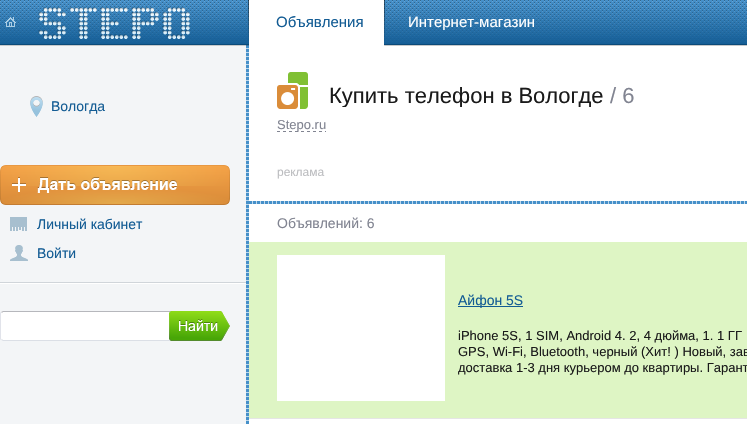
void draw(SkCanvas* c) {
SkPaint p;
p.setAntiAlias(true);
auto F=[&](const char* family, int weight, float size, bool italic = false){SkFontStyle style(weight, SkFontStyle::kNormal_Width,italic ? SkFontStyle::kItalic_Slant : SkFontStyle::kUpright_Slant);SkFont result(fontMgr->matchFamilyStyle(family, style), size);result.setSubpixel(true);return result;};
auto T=[&](const char* s, float x, float y, const SkFont& font){c->drawString(s, x, y, font, p);};
auto R=[&](float x, float y, float w, float h){c->drawRect(SkRect::MakeXYWH(x, y, w, h), p);};
auto I=[&](const char* path, float x, float y, float w, float h){auto image = SkImages::DeferredFromEncodedData(SkData::MakeFromFileName(path));c->drawImageRect(image, SkRect::MakeXYWH(x, y, w, h), SkSamplingOptions());};
auto P=[&](const char* data, bool evenOdd = false){SkPath result = *SkParsePath::FromSVGString(data);if (evenOdd) result.setFillType(SkPathFillType::kEvenOdd);return result;};
c->clear(0xffffffff);
I("1.png",0,0,747,46);
I("2.png",5,7,185,32);
I("3.png",246,0,139,46);
auto f1 = F("Liberation Sans",400,15);
p.setColor(0xff135c94);
T("Объявления",276,27,f1);
p.setColor(0xffffffff);
T("Интернет-магазин",408,27,f1);
p.setColor(0xfff3f5f7);
R(0,46,246,378);
I("4.png",0,282,246,2);
I("5.png",30,96,13,21);
auto f2 = F("Liberation Sans",400,14);
p.setColor(0xff135c94);
T("Вологда",51,111,f2);
I("6.png",0,165,230,40);
I("7.png",10,217,17,14);
T("Личный кабинет",37,229,f2);
I("8.png",10,245,18,16);
T("Войти",37,258,f2);
p.setColor(0xffffffff);
c->drawPath(P("M3 311h166v30h-166c-1.5 0-3-1.5-3-3v-24c0-1.5 1.5-3 3-3z"),p);
p.setColor(0xffb6b7bc);
c->drawPath(P("M3 311l-2 1l1 1l1-1h166v-1z"),p);
p.setColor(0xffdbdfe6);
c->drawPath(P("M169 341v-1h-166l-1-1l-1 1l2 1z"),p);
p.setColor(0xffe1e3ea);
c->drawPath(P("M0 314v24c0 1 0 2 1 2l.5-.5c-.5-.5-.5-1-.5-1.5v-24c0-.5 0-1 .5-1.5l-.5-.5c-1 0-1 1-1 2z"),p);
I("9.png",169,311,61,30);
I("10.png",246,46,3,378);
I("11.png",277,72,31,37);
c->save();
c->clipRect(SkRect::MakeXYWH(329,68,275,39));
auto f3 = F("Liberation Sans",400,22);
p.setColor(0xff1a1a1a);
T("Купить телефон в Вологде",329,103,f3);
c->restore();
p.setColor(0xff818491);
T("/ 6",610,103,f3);
I("12.png",277,131,49,1);
auto f4 = F("Liberation Sans",400,13);
T("Stepo.ru",277,129,f4);
auto f5 = F("Liberation Sans",400,12);
p.setColor(0xffbcbdc0);
T("реклама",277,176,f5);
I("13.png",249,201,498,3);
p.setColor(0xff818491);
T("Объявлений: 6",277,228,f2);
p.setColor(0xffdef5c4);
R(249,242,498,176);
p.setColor(0xffe5e5e5);
R(249,418,498,1);
p.setColor(0xffffffff);
R(277,255,168,146);
p.setColor(0xff135c94);
R(458,306,65,1);
T("Айфон 5S",458,305,f2);
p.setColor(0xff1a1a1a);
T("iPhone 5S, 1 SIM, Android 4. 2, 4 дюйма, 1. 1 ГГ",458,340,f4);
T("GPS, Wi-Fi, Bluetooth, черный (Хит! ) Новый, зав",458,356,f4);
T("доставка 1-3 дня курьером до квартиры. Гарант",458,372,f4);
}
